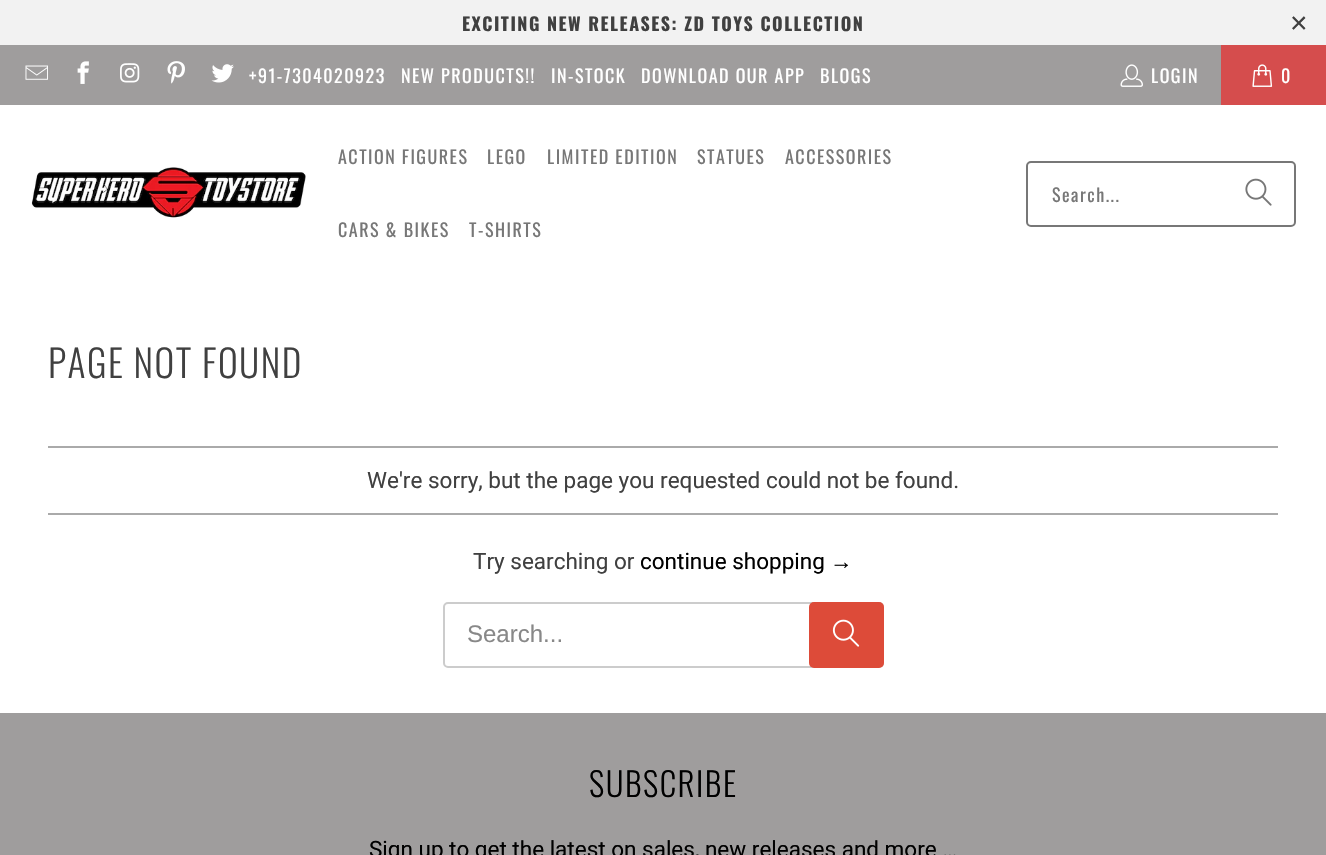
void draw(SkCanvas* c) {
SkPaint p;
p.setAntiAlias(true);
auto F=[&](const char* family, int weight, float size, bool italic = false){SkFontStyle style(weight, SkFontStyle::kNormal_Width,italic ? SkFontStyle::kItalic_Slant : SkFontStyle::kUpright_Slant);SkFont result(fontMgr->matchFamilyStyle(family, style), size);result.setSubpixel(true);return result;};
auto T=[&](const char* s, float x, float y, const SkFont& font){c->drawString(s, x, y, font, p);};
auto L=[&](const char* s, float x, float y, const SkFont& font, const SkPaint& ink, float letter, float word){std::vector<SkGlyphID> glyphs(font.countText(s, strlen(s), SkTextEncoding::kUTF8));std::vector<float> xs(glyphs.size());font.textToGlyphs(s, strlen(s), SkTextEncoding::kUTF8, glyphs);font.getXPos(glyphs, xs, x);float extra = 0;for (size_t i = 0; i < glyphs.size(); i++) {xs[i] += extra;extra += letter + word * (glyphs[i] == font.unicharToGlyph(' '));}c->drawTextBlob(SkTextBlob::MakeFromPosHGlyphs(glyphs, xs, y, font), 0, 0, ink);};
auto R=[&](float x, float y, float w, float h){c->drawRect(SkRect::MakeXYWH(x, y, w, h), p);};
auto Q=[&](float x, float y, float w, float h, float radius){c->drawRoundRect(SkRect::MakeXYWH(x, y, w, h), radius, radius, p);};
auto I=[&](const char* path, float x, float y, float w, float h){auto image = SkImages::DeferredFromEncodedData(SkData::MakeFromFileName(path));c->drawImageRect(image, SkRect::MakeXYWH(x, y, w, h), SkSamplingOptions());};
c->clear(0xffffffff);
p.setColor(0xfff2f2f2);
R(0,0,1326,45);
auto f1 = F("Oswald",700,18);
p.setColor(0xff404040);
L("EXCITING NEW RELEASES: ZD TOYS COLLECTION",462,31,f1,p,1.5,0);
auto f2 = F("Liberation Sans",400,30);
L("×",1290,33,f2,p,1.5,0);
p.setColor(0xff9f9d9d);
R(0,45,1221,60);
I("1.png",25,65,23,15);
I("2.png",77,61,12,23);
I("3.png",120,63,20,20);
I("4.png",167,61,18,23);
I("5.png",211,64,23,19);
auto f3 = F("Oswald",400,18);
p.setColor(0xffffffff);
L("+91-7304020923",249,83,f3,p,1.5,0);
L("NEW PRODUCTS!!",401,83,f3,p,1.5,0);
L("IN-STOCK",551,83,f3,p,1.5,0);
L("DOWNLOAD OUR APP",641,83,f3,p,1.5,0);
L("BLOGS",820,83,f3,p,1.5,0);
I("6.png",1120,64,23,23);
L("LOGIN",1151,83,f3,p,1.5,0);
p.setColor(0xffd54d4d);
R(1221,45,105,60);
I("7.png",1252,64,21,23);
p.setColor(0xffffffff);
L("0",1281,83,f3,p,1.5,0);
I("8.png",31,167,275,51);
p.setColor(0xff777777);
L("ACTION FIGURES",338,164,f3,p,1.5,0);
L("LEGO",487,164,f3,p,1.5,0);
L("LIMITED EDITION",547,164,f3,p,1.5,0);
L("STATUES",697,164,f3,p,1.5,0);
L("ACCESSORIES",785,164,f3,p,1.5,0);
L("CARS & BIKES",338,237,f3,p,1.5,0);
L("T-SHIRTS",469,237,f3,p,1.5,0);
p.setStroke(true);
p.setStrokeWidth(2);
c->drawRoundRect(SkRect::MakeXYWH(1027,162,268,64),4,4,p);
p.setStroke(false);
L("Search...",1052,202,f3,p,1.5,0);
I("9.png",1245,178,27,28);
auto f4 = F("Oswald",300,37.5);
p.setColor(0xff404040);
L("PAGE NOT FOUND",48,378,f4,p,1.5,0);
p.setColor(0xffaaaaaa);
R(48,446,1230,2);
R(48,513,1230,2);
auto f5 = F("Roboto",400,22.5);
p.setColor(0xff404040);
T("We're sorry, but the page you requested could not be found.",367,488,f5);
T("Try searching or",473,569,f5);
p.setColor(0xff000000);
T("continue shopping",640,569,f5);
auto f6 = F("Liberation Sans",400,22.5);
T("→",830,569,f6);
p.setStroke(true);
p.setColor(0xffcccccc);
c->drawRoundRect(SkRect::MakeXYWH(444,603,439,64),4,4,p);
auto f7 = F("Liberation Sans",400,24);
p.setStroke(false);
p.setColor(0xff888888);
T("Search...",467,642,f7);
p.setColor(0xffdd4b39);
Q(809,602,75,66,5);
I("10.png",832,619,28,28);
p.setColor(0xff9f9d9d);
R(0,713,1326,142);
auto f8 = F("Oswald",300,33);
p.setColor(0xff000000);
L("SUBSCRIBE",589,797,f8,p,1.5,0);
T("Sign up to get the latest on sales, new releases and more …",369,857,f5);
}
